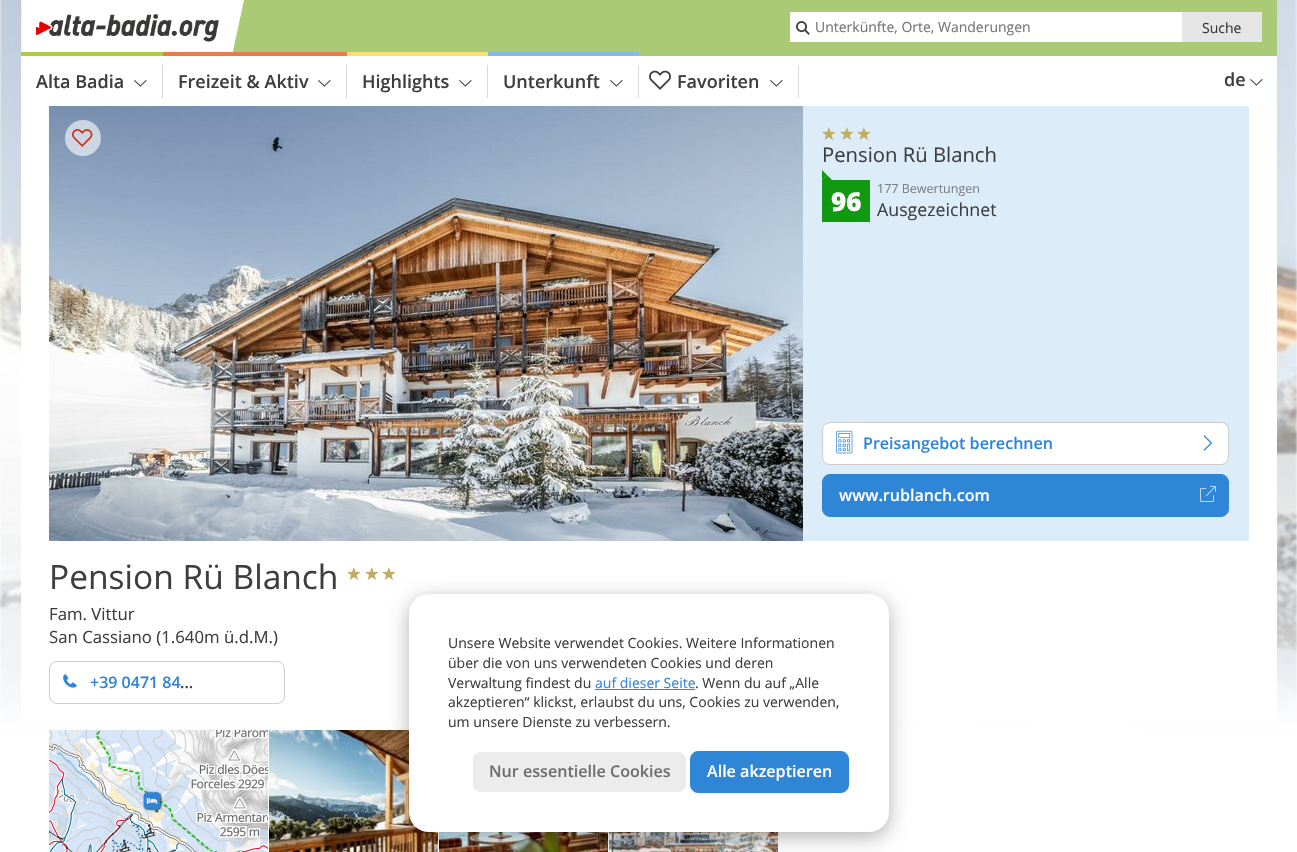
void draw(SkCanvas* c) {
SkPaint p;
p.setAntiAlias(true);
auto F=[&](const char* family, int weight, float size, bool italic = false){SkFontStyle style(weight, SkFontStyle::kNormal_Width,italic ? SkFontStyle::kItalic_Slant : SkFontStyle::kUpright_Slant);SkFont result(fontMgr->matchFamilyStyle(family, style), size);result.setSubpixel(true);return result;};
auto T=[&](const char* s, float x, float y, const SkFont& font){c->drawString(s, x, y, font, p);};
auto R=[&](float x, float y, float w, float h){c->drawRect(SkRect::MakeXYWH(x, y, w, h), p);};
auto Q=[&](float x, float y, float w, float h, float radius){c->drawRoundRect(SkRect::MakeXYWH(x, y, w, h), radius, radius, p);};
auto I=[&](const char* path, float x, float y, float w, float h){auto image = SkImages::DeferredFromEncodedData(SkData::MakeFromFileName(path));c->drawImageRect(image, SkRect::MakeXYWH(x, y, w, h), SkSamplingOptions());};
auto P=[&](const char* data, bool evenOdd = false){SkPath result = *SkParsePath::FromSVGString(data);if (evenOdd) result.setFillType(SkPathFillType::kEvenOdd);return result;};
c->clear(0xffffffff);
I("1.png",0,0,1297,734);
{
const SkColor colors[] = {0x00ffffff,0xffffffff};
const float stops[] = {0,1};
const SkPoint ends[] = {{649,485}, {649,735}};
p.setShader(SkGradientShader::MakeLinear(ends, colors, stops, 2, SkTileMode::kClamp));
p.setAlpha(255);
}
R(0,490,1297,244);
p.setShader(nullptr);
p.setColor(0xffffffff);
R(21,56,1256,670);
p.setColor(0xffaaca76);
R(232,0,1045,56);
c->save();
c->clipRect(SkRect::MakeXYWH(21,0,227,56));
p.setColor(0xffffffff);
c->drawPath(P("M16 0h228l-12 56h-227z"),p);
c->restore();
p.setColor(0xffeff0f0);
R(21,0,1,56);
I("2.png",36,14,183,28);
p.setColor(0xffffffff);
R(790,12,392,30);
I("3.png",796,21,14,14);
auto f1 = F("Open Sans",400,14);
p.setColor(0xff757575);
T("Unterkünfte, Orte, Wanderungen",815,32,f1);
p.setColor(0xffe4e5e4);
R(1182,12,80,30);
p.setColor(0xff3a3938);
T("Suche",1202,33,f1);
p.setColor(0xffadcc43);
R(21,52,142,4);
p.setColor(0xffd8d8d9);
R(162,65,1,33);
auto f2 = F("Open Sans",600,18);
p.setColor(0xff3e3e3f);
T("Alta Badia",36,88,f2);
I("4.png",134,80,13,7);
p.setColor(0xffe87b4b);
R(163,52,184,4);
p.setColor(0xffd8d8d9);
R(346,65,1,33);
p.setColor(0xff3e3e3f);
T("Freizeit & Aktiv",178,88,f2);
I("4.png",318,80,13,7);
p.setColor(0xfff9e174);
R(347,52,141,4);
p.setColor(0xffd8d8d9);
R(487,65,1,33);
p.setColor(0xff3e3e3f);
T("Highlights",362,88,f2);
I("4.png",459,80,13,7);
p.setColor(0xff85bbe3);
R(488,52,151,4);
p.setColor(0xffd8d8d9);
R(638,65,1,33);
p.setColor(0xff3e3e3f);
T("Unterkunft",503,88,f2);
I("4.png",610,80,13,7);
p.setColor(0xffd8d8d9);
R(798,65,1,33);
I("5.png",649,70,22,20);
p.setColor(0xff3e3e3f);
T("Favoriten",677,88,f2);
I("4.png",770,80,13,7);
T("de",1224,86,f2);
I("4.png",1250,79,13,7);
I("6.png",49,106,754,435);
p.setColor(0x99ffffff);
c->drawCircle(83,138,18,p);
I("7.png",72,129,21,18);
p.setColor(0xffdcecf9);
R(803,106,446,435);
I("8.png",822,127,14,13);
I("8.png",840,127,14,13);
I("8.png",857,127,14,13);
auto f3 = F("Open Sans",400,20.25);
p.setColor(0xff3e3e3f);
T("Pension Rü Blanch",822,162,f3);
p.setColor(0xff119a11);
R(822,180,48,42);
c->drawPath(P("M832 180h-10l5-5z"),p);
c->drawPath(P("M822 180v-10l5 5z"),p);
auto f4 = F("Open Sans",800,26);
p.setColor(0xffffffff);
T("96",831,211,f4);
auto f5 = F("Open Sans",400,12.5);
p.setColor(0xff798082);
T("177 Bewertungen",877,193,f5);
auto f6 = F("Open Sans",400,17.75);
p.setColor(0xff3e3e3f);
T("Ausgezeichnet",877,216,f6);
p.setColor(0xffffffff);
c->drawRoundRect(SkRect::MakeXYWH(822.5,422.5,406,42),7.5,7.5,p);
p.setStroke(true);
p.setStrokeWidth(1);
p.setColor(0xffcccccc);
c->drawRoundRect(SkRect::MakeXYWH(822.5,422.5,406,42),7.5,7.5,p);
I("9.png",836,430,17,24);
auto f7 = F("Open Sans",600,16.1);
p.setStroke(false);
p.setColor(0xff2f86d7);
T("Preisangebot berechnen",863,449,f7);
I("10.png",1203,435,10,16);
c->drawRoundRect(SkRect::MakeXYWH(822.5,474.5,406,42),7.5,7.5,p);
p.setStroke(true);
c->drawRoundRect(SkRect::MakeXYWH(822.5,474.5,406,42),7.5,7.5,p);
p.setStroke(false);
p.setColor(0xffffffff);
T("www.rublanch.com",839,501,f7);
I("11.png",1200,486,16,16);
auto f8 = F("Open Sans",400,33.5);
p.setColor(0xff3e3e3f);
T("Pension Rü Blanch",49,589,f8);
I("12.png",347,567,14,13);
I("12.png",365,567,14,13);
I("12.png",382,567,14,13);
auto f9 = F("Open Sans",400,16.75);
T("Fam. Vittur",49,620,f9);
T("San Cassiano (1.640m ü.d.M.)",49,643,f9);
p.setStroke(true);
p.setColor(0xffcccccc);
c->drawRoundRect(SkRect::MakeXYWH(49.5,661.5,235,42),7.5,7.5,p);
I("13.png",63,674,14,14);
auto f10 = F("Open Sans",600,16);
p.setStroke(false);
p.setColor(0xff2f86d7);
T("+39 0471 84",90,688,f10);
p.setColor(0xff3e3e3f);
T("...",180,688,f10);
I("14.png",49,730,219,122);
I("15.png",269,730,169,122);
I("16.png",439,832,169,20);
I("17.png",609,832,169,20);
p.setColor(0x4d000000);
p.setMaskFilter(SkMaskFilter::MakeBlur(kNormal_SkBlurStyle, 10));
c->drawRoundRect(SkRect::MakeXYWH(409,599,480,238),20,20,p);
p.setMaskFilter(nullptr);
p.setColor(0xffffffff);
Q(409,594,480,238,20);
p.setColor(0xff3e3e3f);
T("Unsere Website verwendet Cookies. Weitere Informationen",448,648,f1);
T("über die von uns verwendeten Cookies und deren",448,668,f1);
T("Verwaltung findest du",448,688,f1);
p.setColor(0xff2f86d7);
T("auf dieser Seite",595,688,f1);
R(595,689,100,1);
p.setColor(0xff3e3e3f);
T(". Wenn du auf „Alle",695,688,f1);
T("akzeptieren“ klickst, erlaubst du uns, Cookies zu verwenden,",448,707,f1);
T("um unsere Dienste zu verbessern.",448,727,f1);
p.setColor(0xffececec);
Q(473,752,213,40,8);
p.setColor(0xff6e6e6f);
T("Nur essentielle Cookies",489,777,f7);
p.setColor(0xff2f86d7);
c->drawRoundRect(SkRect::MakeXYWH(690.5,751.5,158,41),7.5,7.5,p);
p.setStroke(true);
c->drawRoundRect(SkRect::MakeXYWH(690.5,751.5,158,41),7.5,7.5,p);
p.setStroke(false);
p.setColor(0xffffffff);
T("Alle akzeptieren",707,777,f7);
}
